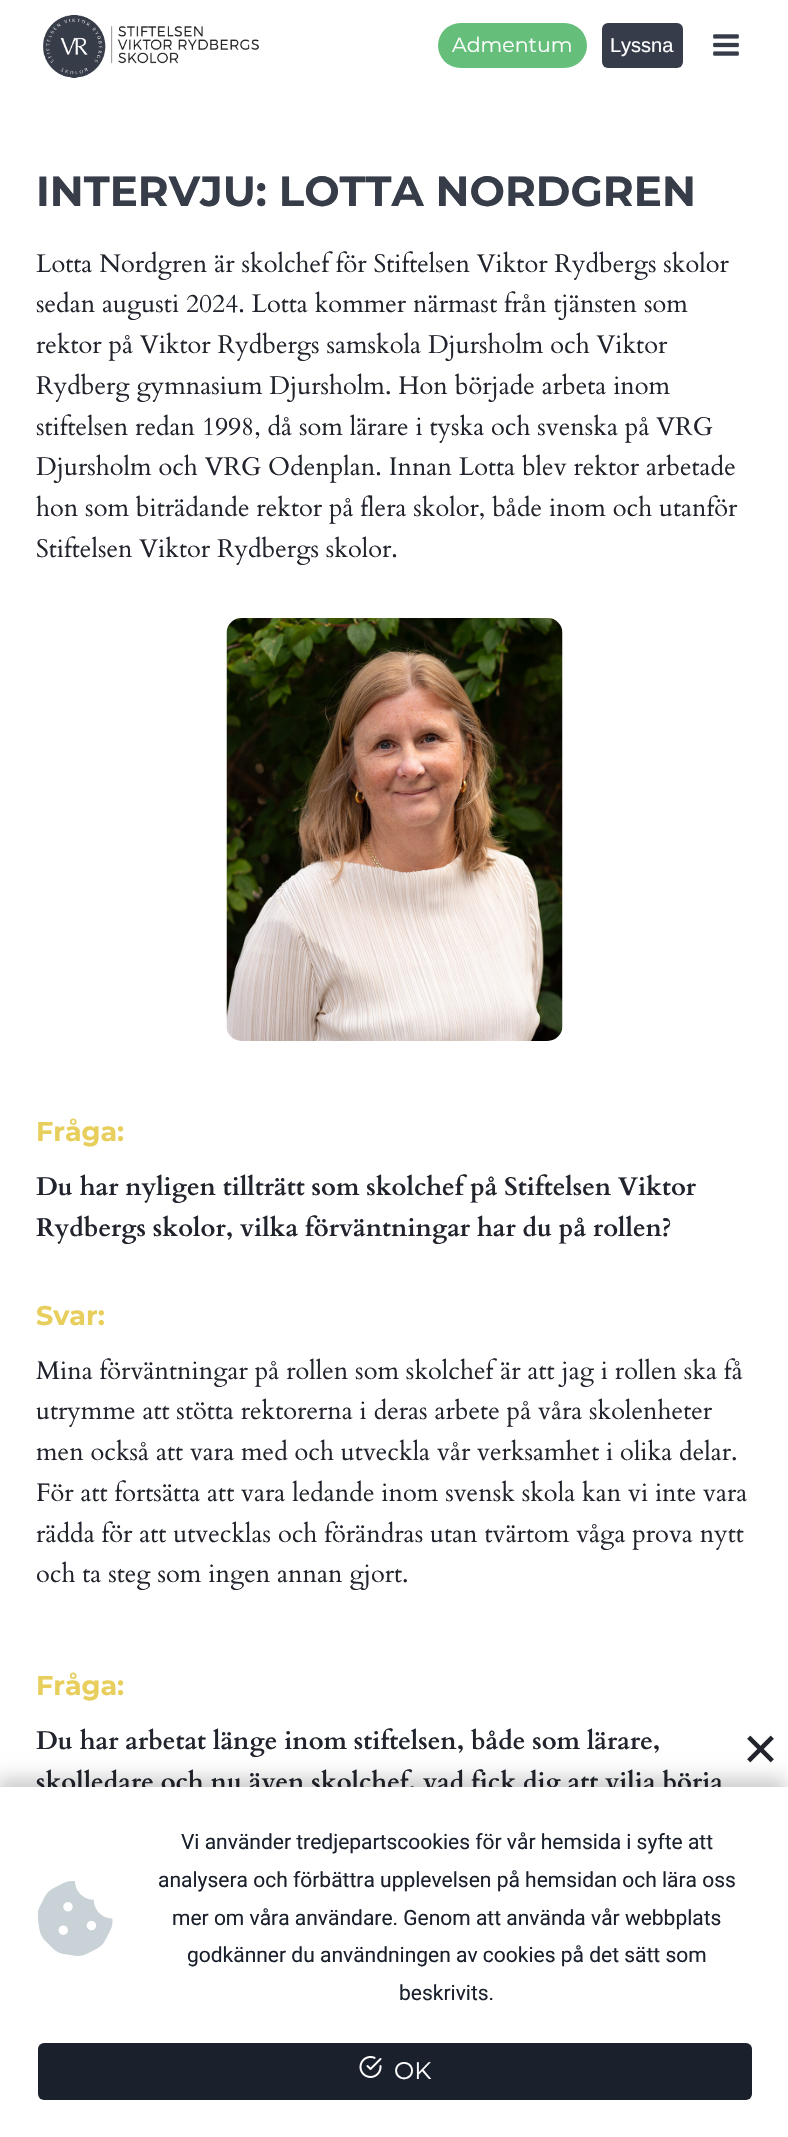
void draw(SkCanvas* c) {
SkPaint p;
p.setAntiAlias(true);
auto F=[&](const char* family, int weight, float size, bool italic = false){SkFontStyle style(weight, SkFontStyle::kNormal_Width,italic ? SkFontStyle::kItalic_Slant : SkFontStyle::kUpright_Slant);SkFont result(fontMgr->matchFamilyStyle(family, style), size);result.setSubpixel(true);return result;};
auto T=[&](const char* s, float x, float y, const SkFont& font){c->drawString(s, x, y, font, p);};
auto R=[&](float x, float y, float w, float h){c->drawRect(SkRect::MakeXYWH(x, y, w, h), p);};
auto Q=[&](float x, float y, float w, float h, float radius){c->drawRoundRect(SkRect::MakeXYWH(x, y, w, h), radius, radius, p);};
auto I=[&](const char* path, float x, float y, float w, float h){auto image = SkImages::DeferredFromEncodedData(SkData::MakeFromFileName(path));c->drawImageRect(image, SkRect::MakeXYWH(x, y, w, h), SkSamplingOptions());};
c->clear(0xffffffff);
I("1.png",43,14,216,64);
p.setColor(0xff65be7a);
Q(438,23,149,45,22.5);
auto f1 = F("Montserrat",400,20.5);
p.setColor(0xffffffff);
T("Admentum",452,52,f1);
p.setColor(0xff373c4a);
Q(602,23,81,45,6);
auto f2 = F("Liberation Sans",400,20);
p.setColor(0xffffffff);
T("Lyssna",610,52,f2);
I("2.png",713,34,26,22);
auto f3 = F("Montserrat",700,42);
p.setColor(0xff373c49);
T("INTERVJU: LOTTA NORDGREN",36,206,f3);
auto f4 = F("Cardo",400,25.5);
p.setColor(0xff21242c);
T("Lotta Nordgren är skolchef för Stiftelsen Viktor Rydbergs skolor",36,272,f4);
T("sedan augusti 2024. Lotta kommer närmast från tjänsten som",36,312,f4);
T("rektor på Viktor Rydbergs samskola Djursholm och Viktor",36,353,f4);
T("Rydberg gymnasium Djursholm. Hon började arbeta inom",36,394,f4);
T("stiftelsen redan 1998, då som lärare i tyska och svenska på VRG",36,435,f4);
T("Djursholm och VRG Odenplan. Innan Lotta blev rektor arbetade",36,475,f4);
T("hon som biträdande rektor på flera skolor, både inom och utanför",36,516,f4);
T("Stiftelsen Viktor Rydbergs skolor.",36,557,f4);
I("3.png",226,618,337,423);
auto f5 = F("Montserrat",700,27);
p.setColor(0xffe8cf5d);
T("Fråga:",36,1141,f5);
auto f6 = F("Cardo",700,25.5);
p.setColor(0xff21242c);
T("Du har nyligen tillträtt som skolchef på Stiftelsen Viktor",36,1195,f6);
T("Rydbergs skolor, vilka förväntningar har du på rollen?",36,1236,f6);
p.setColor(0xffe8cf5d);
T("Svar:",36,1325,f5);
p.setColor(0xff21242c);
T("Mina förväntningar på rollen som skolchef är att jag i rollen ska få",36,1379,f4);
T("utrymme att stötta rektorerna i deras arbete på våra skolenheter",36,1419,f4);
T("men också att vara med och utveckla vår verksamhet i olika delar.",36,1460,f4);
T("För att fortsätta att vara ledande inom svensk skola kan vi inte vara",36,1501,f4);
T("rädda för att utvecklas och förändras utan tvärtom våga prova nytt",36,1542,f4);
T("och ta steg som ingen annan gjort.",36,1582,f4);
p.setColor(0xffe8cf5d);
T("Fråga:",36,1695,f5);
p.setColor(0xff21242c);
T("Du har arbetat länge inom stiftelsen, både som lärare,",36,1749,f6);
T("skolledare och nu även skolchef, vad fick dig att vilja börja",36,1790,f6);
p.setColor(0x33000000);
p.setMaskFilter(SkMaskFilter::MakeBlur(kNormal_SkBlurStyle, 9));
c->drawRect(SkRect::MakeXYWH(-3,1778,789,351),p);
p.setMaskFilter(nullptr);
p.setColor(0xffffffff);
R(0,1787,788,350);
I("4.png",747,1735,27,28);
I("5.png",38,1881,75,75);
auto f7 = F("Roboto",400,21);
p.setColor(0xff1a202c);
T("Vi använder tredjepartscookies för vår hemsida i syfte att",181,1849,f7);
T("analysera och förbättra upplevelsen på hemsidan och lära oss",158,1887,f7);
T("mer om våra användare. Genom att använda vår webbplats",172,1925,f7);
T("godkänner du användningen av cookies på det sätt som",187,1962,f7);
T("beskrivits.",399,2000,f7);
Q(38,2043,714,57,6);
I("6.png",359,2056,23,22);
auto f8 = F("Montserrat",400,24);
p.setColor(0xffffffff);
T("OK",394,2079,f8);
}
